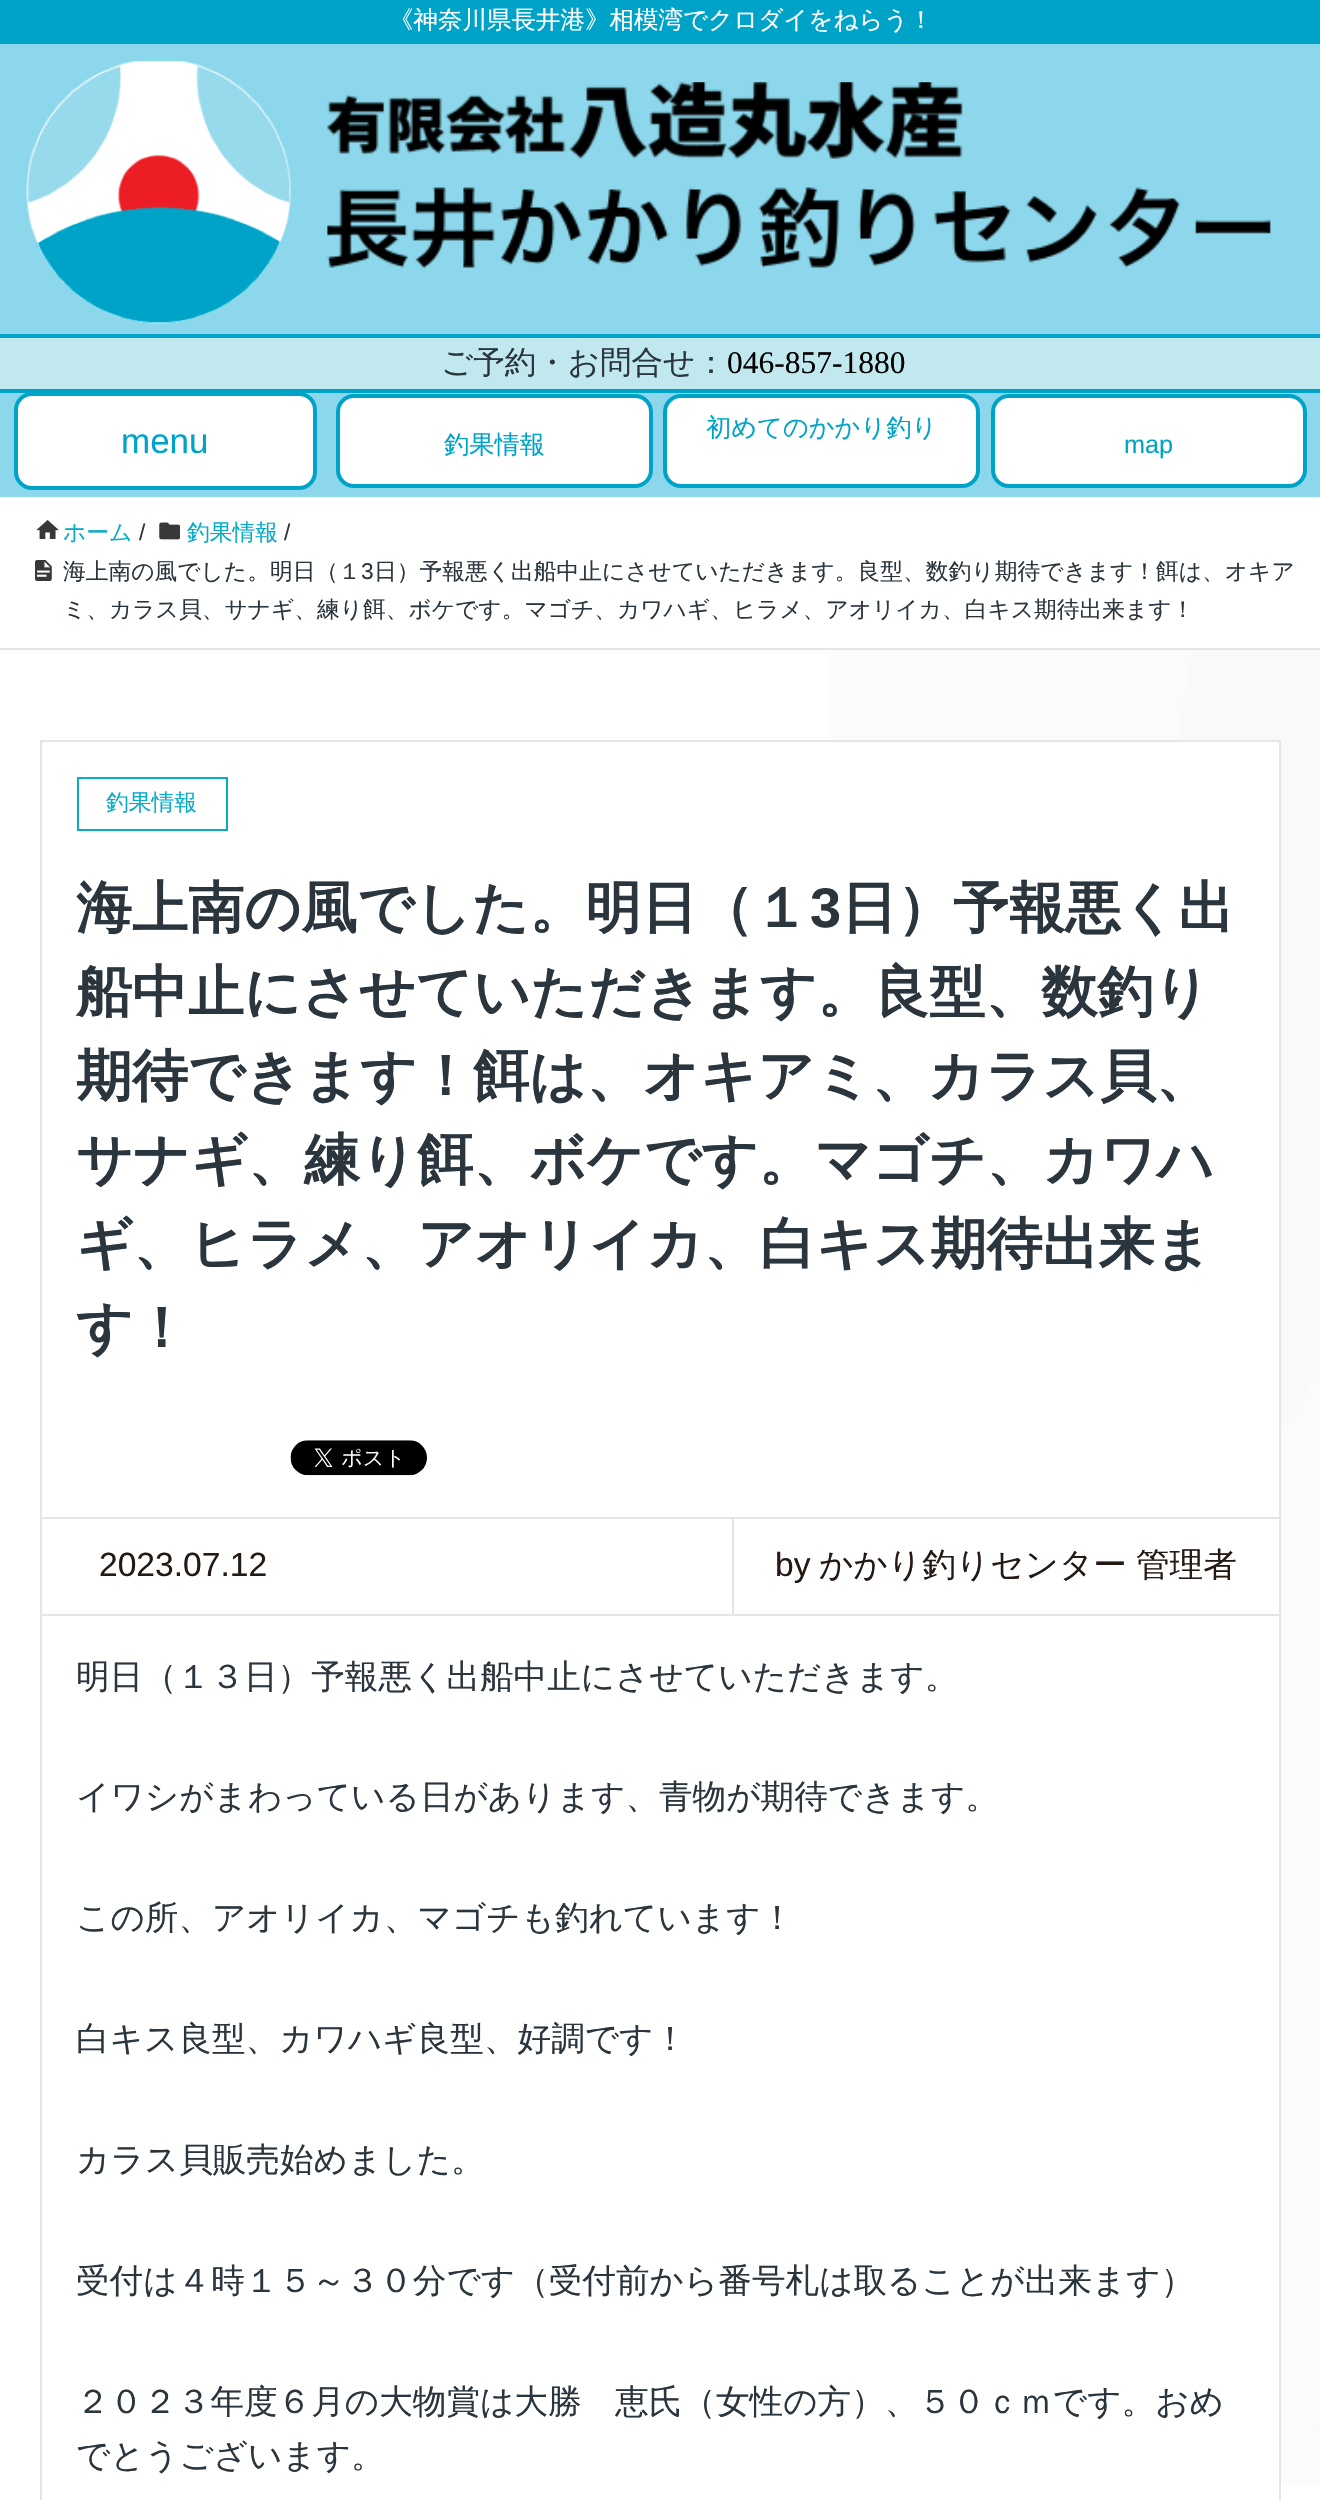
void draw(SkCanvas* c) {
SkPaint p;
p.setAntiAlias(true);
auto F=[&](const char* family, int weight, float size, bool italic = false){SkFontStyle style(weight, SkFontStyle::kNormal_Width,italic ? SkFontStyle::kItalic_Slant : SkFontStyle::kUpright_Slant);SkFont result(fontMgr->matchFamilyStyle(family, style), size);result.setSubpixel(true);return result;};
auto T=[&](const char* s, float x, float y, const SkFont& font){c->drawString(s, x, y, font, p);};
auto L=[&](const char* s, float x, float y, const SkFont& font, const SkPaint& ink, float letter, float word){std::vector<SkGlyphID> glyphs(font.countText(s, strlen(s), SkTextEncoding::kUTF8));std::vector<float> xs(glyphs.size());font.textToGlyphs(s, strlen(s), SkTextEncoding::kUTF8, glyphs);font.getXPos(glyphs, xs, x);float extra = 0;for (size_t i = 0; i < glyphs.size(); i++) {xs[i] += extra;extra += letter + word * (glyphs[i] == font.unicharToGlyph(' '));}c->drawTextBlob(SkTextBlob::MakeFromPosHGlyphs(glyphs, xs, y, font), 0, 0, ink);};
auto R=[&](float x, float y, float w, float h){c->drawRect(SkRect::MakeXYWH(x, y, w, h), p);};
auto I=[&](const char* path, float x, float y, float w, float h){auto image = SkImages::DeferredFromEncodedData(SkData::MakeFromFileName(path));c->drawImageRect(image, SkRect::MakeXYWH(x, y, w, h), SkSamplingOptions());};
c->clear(0xffffffff);
I("1.png",831,650,489,1835);
p.setColor(0xff8cd7eb);
R(0,44,1320,453);
p.setColor(0xff00a3c8);
R(0,0,1320,44);
auto f1 = F("WenQuanYi Zen Hei",500,24.5);
p.setColor(0xffffffff);
T("《神奈川県長井港》相模湾でクロダイをねらう！",389,28,f1);
I("2.png",26,61,265,263);
I("3.png",327,82,944,186);
p.setColor(0xffc1e8ef);
R(0,338,1320,51);
p.setColor(0xff00a3c8);
R(0,334,1320,4);
R(0,389,1320,4);
auto f2 = F("WenQuanYi Zen Hei",500,31.5);
p.setColor(0xff2b353e);
T("ご予約・お問合せ：",441,373,f2);
auto f3 = F("Liberation Serif",400,31.5);
p.setColor(0xff000000);
T("046-857-1880",727,373,f3);
p.setColor(0xffffffff);
c->drawRoundRect(SkRect::MakeXYWH(16,394,299,94),16,16,p);
p.setStroke(true);
p.setStrokeWidth(4);
p.setColor(0xff00a3c8);
c->drawRoundRect(SkRect::MakeXYWH(16,394,299,94),16,16,p);
auto f4 = F("Liberation Sans",400,35);
p.setStroke(false);
T("menu",121,453,f4);
p.setColor(0xffffffff);
c->drawRoundRect(SkRect::MakeXYWH(665,396,313,90),16,16,p);
p.setStroke(true);
p.setColor(0xff00a3c8);
c->drawRoundRect(SkRect::MakeXYWH(665,396,313,90),16,16,p);
auto f5 = F("WenQuanYi Zen Hei",500,25.25);
p.setStroke(false);
T("初めてのかかり釣り",706,436,f5);
p.setColor(0xffffffff);
c->drawRoundRect(SkRect::MakeXYWH(338,396,313,90),16,16,p);
p.setStroke(true);
p.setColor(0xff00a3c8);
c->drawRoundRect(SkRect::MakeXYWH(338,396,313,90),16,16,p);
p.setStroke(false);
T("釣果情報",444,453,f5);
p.setColor(0xffffffff);
c->drawRoundRect(SkRect::MakeXYWH(993,396,312,90),16,16,p);
p.setStroke(true);
p.setColor(0xff00a3c8);
c->drawRoundRect(SkRect::MakeXYWH(993,396,312,90),16,16,p);
auto f6 = F("Liberation Sans",400,25.25);
p.setStroke(false);
T("map",1124,453,f6);
p.setColor(0xffe5e5e5);
R(0,648,1320,2);
I("4.png",36,520,23,19);
auto f7 = F("WenQuanYi Zen Hei",500,22.75);
p.setColor(0xff06abc8);
T("ホーム",63,540,f7);
auto f8 = F("Liberation Sans",400,22.75);
p.setColor(0xff2b353e);
T("/",139,540,f8);
I("5.png",159,522,21,18);
p.setColor(0xff06abc8);
T("釣果情報",187,540,f7);
p.setColor(0xff2b353e);
T("/",284,540,f8);
I("6.png",35,560,17,21);
T("海上南の風でした。明日（１",63,579,f7);
T("3",361,579,f8);
T("日）予報悪く出船中止にさせていただきます。良型、数釣り期待できます！餌は、オキア",374,579,f7);
T("ミ、カラス貝、サナギ、練り餌、ボケです。マゴチ、カワハギ、ヒラメ、アオリイカ、白キス期待出来ます！",63,617,f7);
p.setColor(0xffffffff);
R(831,742,448,1743);
p.setStroke(true);
p.setStrokeWidth(2);
p.setColor(0xffe5e5e5);
c->drawRect(SkRect::MakeXYWH(41,741,1239,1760),p);
p.setStroke(false);
R(42,1517,1237,2);
p.setStroke(true);
p.setColor(0xff06abc8);
c->drawRect(SkRect::MakeXYWH(78,778,149,52),p);
p.setStroke(false);
T("釣果情報",106,810,f7);
auto f9 = F("WenQuanYi Zen Hei",700,56);
p.setColor(0xff2b353e);
T("海上南の風でした。明日（１",76,927,f9);
auto f10 = F("Liberation Sans",700,56);
T("3",810,927,f10);
T("日）予報悪く出",841,927,f9);
T("船中止にさせていただきます。良型、数釣り",76,1011,f9);
T("期待できます！餌は、オキアミ、カラス貝、",76,1095,f9);
T("サナギ、練り餌、ボケです。マゴチ、カワハ",76,1179,f9);
T("ギ、ヒラメ、アオリイカ、白キス期待出来ま",76,1263,f9);
T("す！",76,1347,f9);
I("7.png",290,1440,137,36);
p.setColor(0xffe5e5e5);
R(42,1614,1237,2);
auto f11 = F("Liberation Sans",400,33.6);
p.setColor(0xff241913);
T("2023.07.12",99,1576,f11);
p.setColor(0xffe5e5e5);
R(732,1519,2,95);
p.setColor(0xff241913);
T("by",775,1576,f11);
auto f12 = F("WenQuanYi Zen Hei",500,33.6);
L("かかり釣りセンター 管理者",819,1576,f12,p,0,-1);
p.setColor(0xff2b353e);
T("明日（１３日）予報悪く出船中止にさせていただきます。",76,1688,f12);
T("イワシがまわっている日があります、青物が期待できます。",76,1808,f12);
T("この所、アオリイカ、マゴチも釣れています！",76,1929,f12);
T("白キス良型、カワハギ良型、好調です！",76,2050,f12);
T("カラス貝販売始めました。",76,2171,f12);
T("受付は４時１５～３０分です（受付前から番号札は取ることが出来ます）",76,2292,f12);
T("２０２３年度６月の大物賞は大勝　恵氏（女性の方）、５０ｃｍです。おめ",76,2413,f12);
T("でとうございます。",76,2467,f12);
}
